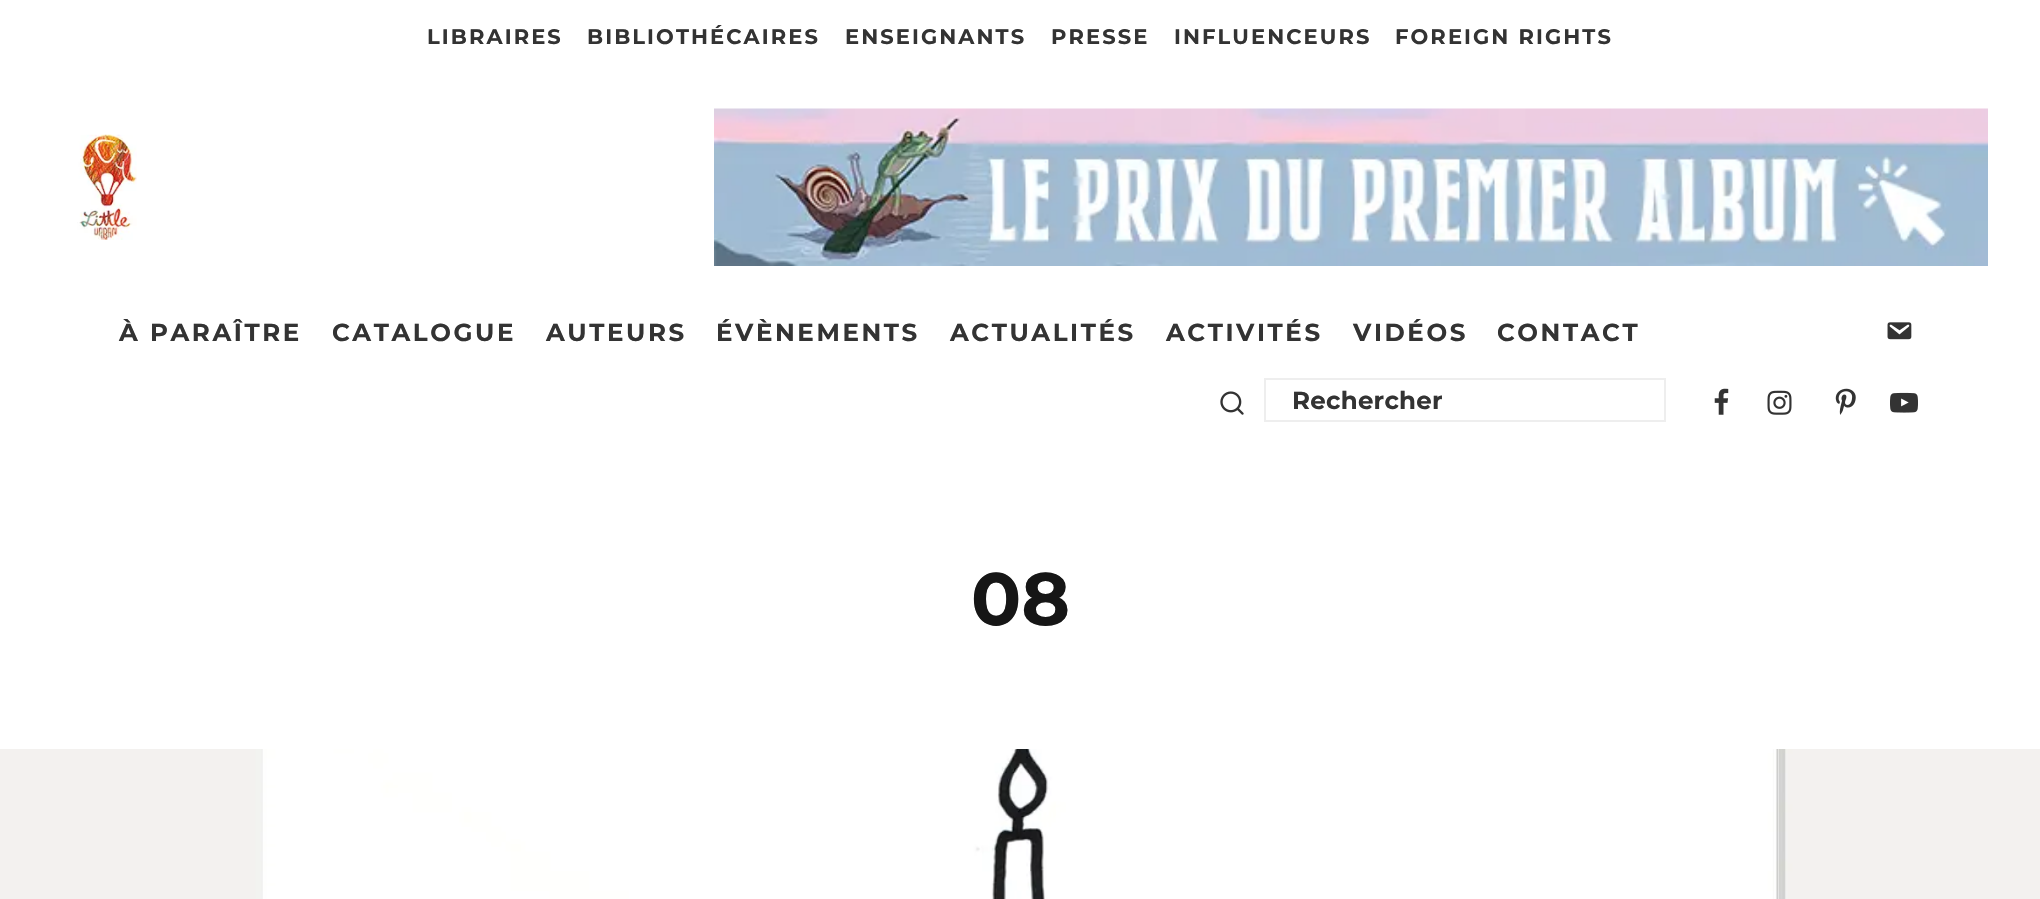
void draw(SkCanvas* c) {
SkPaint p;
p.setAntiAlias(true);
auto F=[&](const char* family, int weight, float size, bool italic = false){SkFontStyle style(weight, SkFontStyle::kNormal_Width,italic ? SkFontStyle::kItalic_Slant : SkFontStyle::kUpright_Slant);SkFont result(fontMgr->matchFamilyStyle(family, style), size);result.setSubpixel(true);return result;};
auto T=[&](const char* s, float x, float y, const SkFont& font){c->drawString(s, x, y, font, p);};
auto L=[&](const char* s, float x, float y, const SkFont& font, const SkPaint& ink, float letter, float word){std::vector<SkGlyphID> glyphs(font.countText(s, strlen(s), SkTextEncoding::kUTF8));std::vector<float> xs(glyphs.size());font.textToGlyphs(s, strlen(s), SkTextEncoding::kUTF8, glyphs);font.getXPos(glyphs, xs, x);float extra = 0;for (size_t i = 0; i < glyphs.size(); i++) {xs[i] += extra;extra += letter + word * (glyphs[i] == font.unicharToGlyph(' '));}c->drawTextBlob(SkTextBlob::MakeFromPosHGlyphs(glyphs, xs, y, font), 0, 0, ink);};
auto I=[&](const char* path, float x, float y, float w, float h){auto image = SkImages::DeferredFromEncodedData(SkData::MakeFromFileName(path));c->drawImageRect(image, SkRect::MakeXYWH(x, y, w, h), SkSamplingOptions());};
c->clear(0xffffffff);
auto f1 = F("Montserrat",700,21);
p.setColor(0xff333333);
L("LIBRAIRES",427,44,f1,p,2.1,0);
L("BIBLIOTHÉCAIRES",587,44,f1,p,2.1,0);
L("ENSEIGNANTS",845,44,f1,p,2.1,0);
L("PRESSE",1051,44,f1,p,2.1,0);
L("INFLUENCEURS",1174,44,f1,p,2.1,0);
L("FOREIGN RIGHTS",1395,44,f1,p,2.1,0);
I("1.png",77,134,60,106);
I("2.png",714,108,1274,158);
auto f2 = F("Montserrat",700,24.5);
L("À PARAÎTRE",119,341,f2,p,2.6,0);
L("CATALOGUE",332,341,f2,p,2.6,0);
L("AUTEURS",546,341,f2,p,2.6,0);
L("ÉVÈNEMENTS",716,341,f2,p,2.6,0);
L("ACTUALITÉS",950,341,f2,p,2.6,0);
L("ACTIVITÉS",1166,341,f2,p,2.6,0);
L("VIDÉOS",1353,341,f2,p,2.6,0);
L("CONTACT",1497,341,f2,p,2.6,0);
I("3.png",1887,322,25,18);
I("4.png",1220,391,24,24);
p.setStroke(true);
p.setStrokeWidth(2);
p.setColor(0xffeeeeee);
c->drawRect(SkRect::MakeXYWH(1265,379,400,42),p);
p.setStroke(false);
p.setColor(0xff333333);
L("Rechercher",1292,409,f2,p,.25,0);
I("5.png",1714,388,15,27);
I("6.png",1767,390,25,25);
I("7.png",1835,388,21,27);
I("8.png",1890,392,28,21);
auto f3 = F("Montserrat",700,74);
p.setColor(0xff161616);
T("08",971,625,f3);
I("9.png",0,749,2040,150);
}
